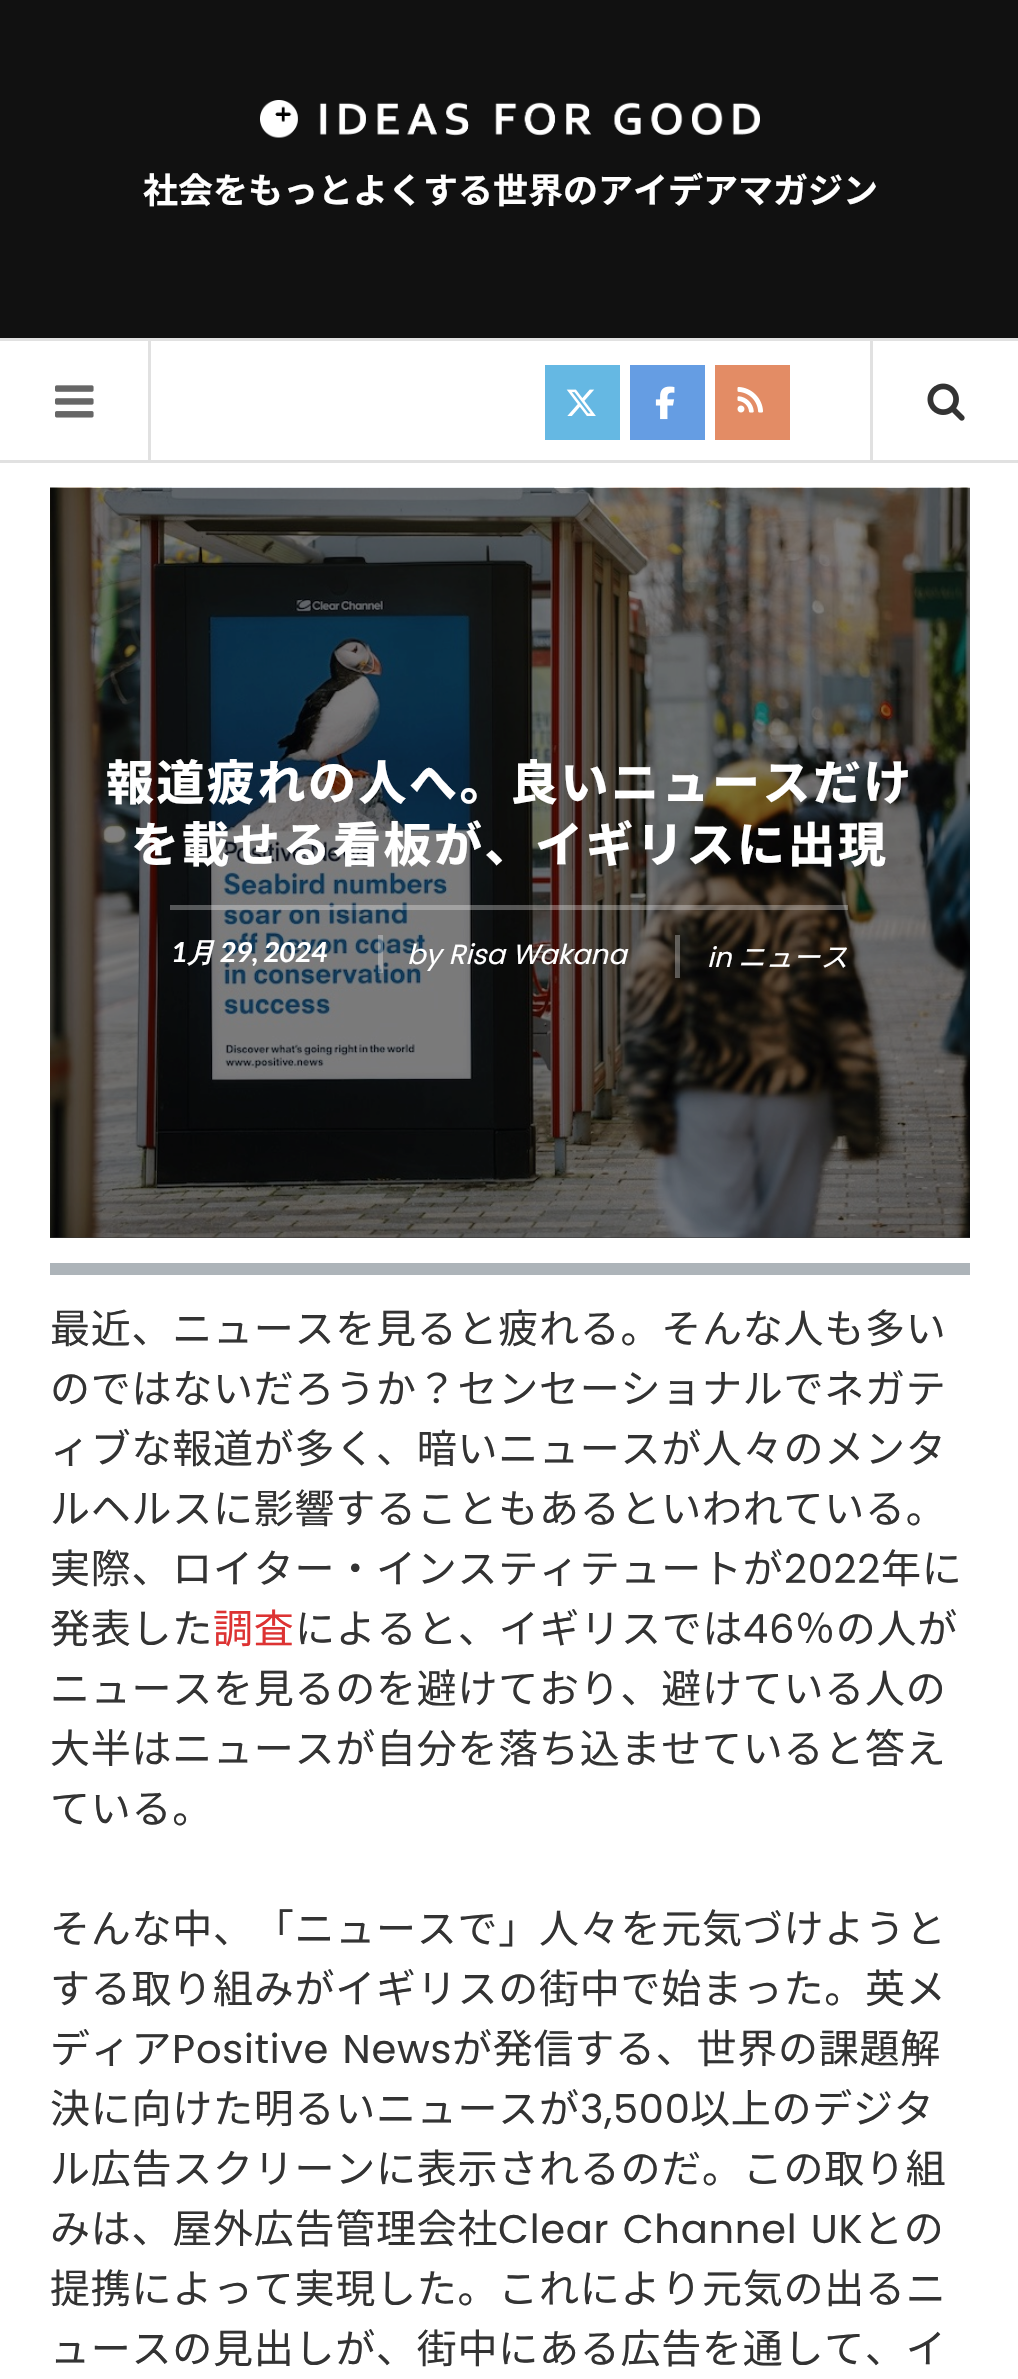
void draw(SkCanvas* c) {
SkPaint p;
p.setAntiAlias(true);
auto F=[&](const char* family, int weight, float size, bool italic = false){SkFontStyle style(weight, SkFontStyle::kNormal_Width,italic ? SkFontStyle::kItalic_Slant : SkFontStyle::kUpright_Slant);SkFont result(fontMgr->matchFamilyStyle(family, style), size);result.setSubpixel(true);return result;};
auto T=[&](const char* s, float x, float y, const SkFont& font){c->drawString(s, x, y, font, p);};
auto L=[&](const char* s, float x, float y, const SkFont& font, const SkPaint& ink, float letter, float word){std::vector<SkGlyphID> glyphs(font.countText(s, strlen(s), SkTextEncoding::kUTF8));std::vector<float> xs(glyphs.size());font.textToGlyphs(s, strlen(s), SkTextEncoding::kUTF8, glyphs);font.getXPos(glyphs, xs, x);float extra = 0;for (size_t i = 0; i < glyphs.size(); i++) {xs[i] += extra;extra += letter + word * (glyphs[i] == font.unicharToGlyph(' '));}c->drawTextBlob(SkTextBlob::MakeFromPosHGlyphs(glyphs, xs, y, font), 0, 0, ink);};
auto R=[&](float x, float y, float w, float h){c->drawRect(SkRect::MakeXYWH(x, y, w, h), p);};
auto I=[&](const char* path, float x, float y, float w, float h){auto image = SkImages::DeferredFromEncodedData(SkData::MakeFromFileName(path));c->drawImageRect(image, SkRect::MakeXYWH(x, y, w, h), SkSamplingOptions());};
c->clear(0xffffffff);
p.setColor(0xff111111);
R(0,0,1018,338);
I("1.png",260,100,500,38);
auto f1 = F("Noto Sans JP",700,35);
p.setColor(0xffffffff);
T("社会をもっとよくする世界のアイデアマガジン",143,203,f1);
p.setColor(0xffe1e1e1);
R(0,338,1018,3);
R(0,460,1018,3);
R(148,340,3,120);
I("2.png",55,385,39,33);
p.setColor(0xff65b8e3);
R(545,365,75,75);
I("3.png",566,389,30,27);
p.setColor(0xff659de3);
R(630,365,75,75);
I("4.png",655,386,20,34);
p.setColor(0xffe38c65);
R(715,365,75,75);
I("5.png",737,387,26,26);
p.setColor(0xffe1e1e1);
R(870,340,3,120);
I("6.png",927,383,38,38);
p.setColor(0xff333333);
R(50,1237,920,1);
I("7.png",50,487,920,751);
auto f2 = F("Noto Sans JP",800,48);
p.setColor(0xffffffff);
L("報道疲れの人へ。良いニュースだけ",106,800,f2,p,2.5,0);
L("を載せる看板が、イギリスに出現",131,862,f2,p,2.5,0);
p.setColor(0x4dffffff);
R(170,905,678,5);
R(378,935,5,38);
auto f3 = F("Lato",700,27.5,true);
p.setColor(0xffffffff);
T("1",171,962,f3);
auto f4 = F("WenQuanYi Zen Hei",700,27.5,true);
T("月",187,962,f4);
T("29, 2024",220,962,f3);
p.setColor(0x4dffffff);
R(675,935,5,43);
auto f5 = F("Poppins",400,27.5,true);
p.setColor(0xffffffff);
T("by Risa Wakana",407,964,f5);
T("in",707,967,f5);
auto f6 = F("Noto Sans JP",400,27.5,true);
T("ニュース",738,967,f6);
p.setColor(0xffadb4b9);
R(50,1263,920,12);
auto f7 = F("Noto Sans JP",400,40);
p.setColor(0xff333333);
L("最近、ニュースを見ると疲れる。そんな人も多い",50,1343,f7,p,.75,0);
L("のではないだろうか？センセーショナルでネガテ",50,1403,f7,p,.75,0);
L("ィブな報道が多く、暗いニュースが人々のメンタ",50,1463,f7,p,.75,0);
L("ルヘルスに影響することもあるといわれている。",50,1523,f7,p,.75,0);
L("実際、ロイター・インスティテュートが",50,1583,f7,p,.75,0);
auto f8 = F("Poppins",400,40);
L("2022",784,1583,f8,p,.75,0);
L("年に",881,1583,f7,p,.75,0);
L("発表した",50,1643,f7,p,.75,0);
p.setColor(0xffdd3333);
L("調査",213,1643,f7,p,.75,0);
p.setColor(0xff333333);
L("によると、イギリスでは",295,1643,f7,p,.75,0);
L("46",743,1643,f8,p,.75,0);
L("％の人が",795,1643,f7,p,.75,0);
L("ニュースを見るのを避けており、避けている人の",50,1703,f7,p,.75,0);
L("大半はニュースが自分を落ち込ませていると答え",50,1763,f7,p,.75,0);
L("ている。",50,1823,f7,p,.75,0);
L("そんな中、「ニュースで」人々を元気づけようと",50,1943,f7,p,.75,0);
L("する取り組みがイギリスの街中で始まった。英メ",50,2003,f7,p,.75,0);
L("ディア",50,2063,f7,p,.75,0);
L("Positive News",172,2063,f8,p,.75,2);
L("が発信する、世界の課題解",452,2063,f7,p,.75,0);
L("決に向けた明るいニュースが",50,2123,f7,p,.75,0);
L("3,500",580,2123,f8,p,.75,0);
L("以上のデジタ",690,2123,f7,p,.75,0);
L("ル広告スクリーンに表示されるのだ。この取り組",50,2183,f7,p,.75,0);
L("みは、屋外広告管理会社",50,2243,f7,p,.75,0);
L("Clear Channel UK",498,2243,f8,p,.75,2);
L("との",863,2243,f7,p,.75,0);
L("提携によって実現した。これにより元気の出るニ",50,2303,f7,p,.75,0);
L("ュースの見出しが、街中にある広告を通して、イ",50,2363,f7,p,.75,0);
}
